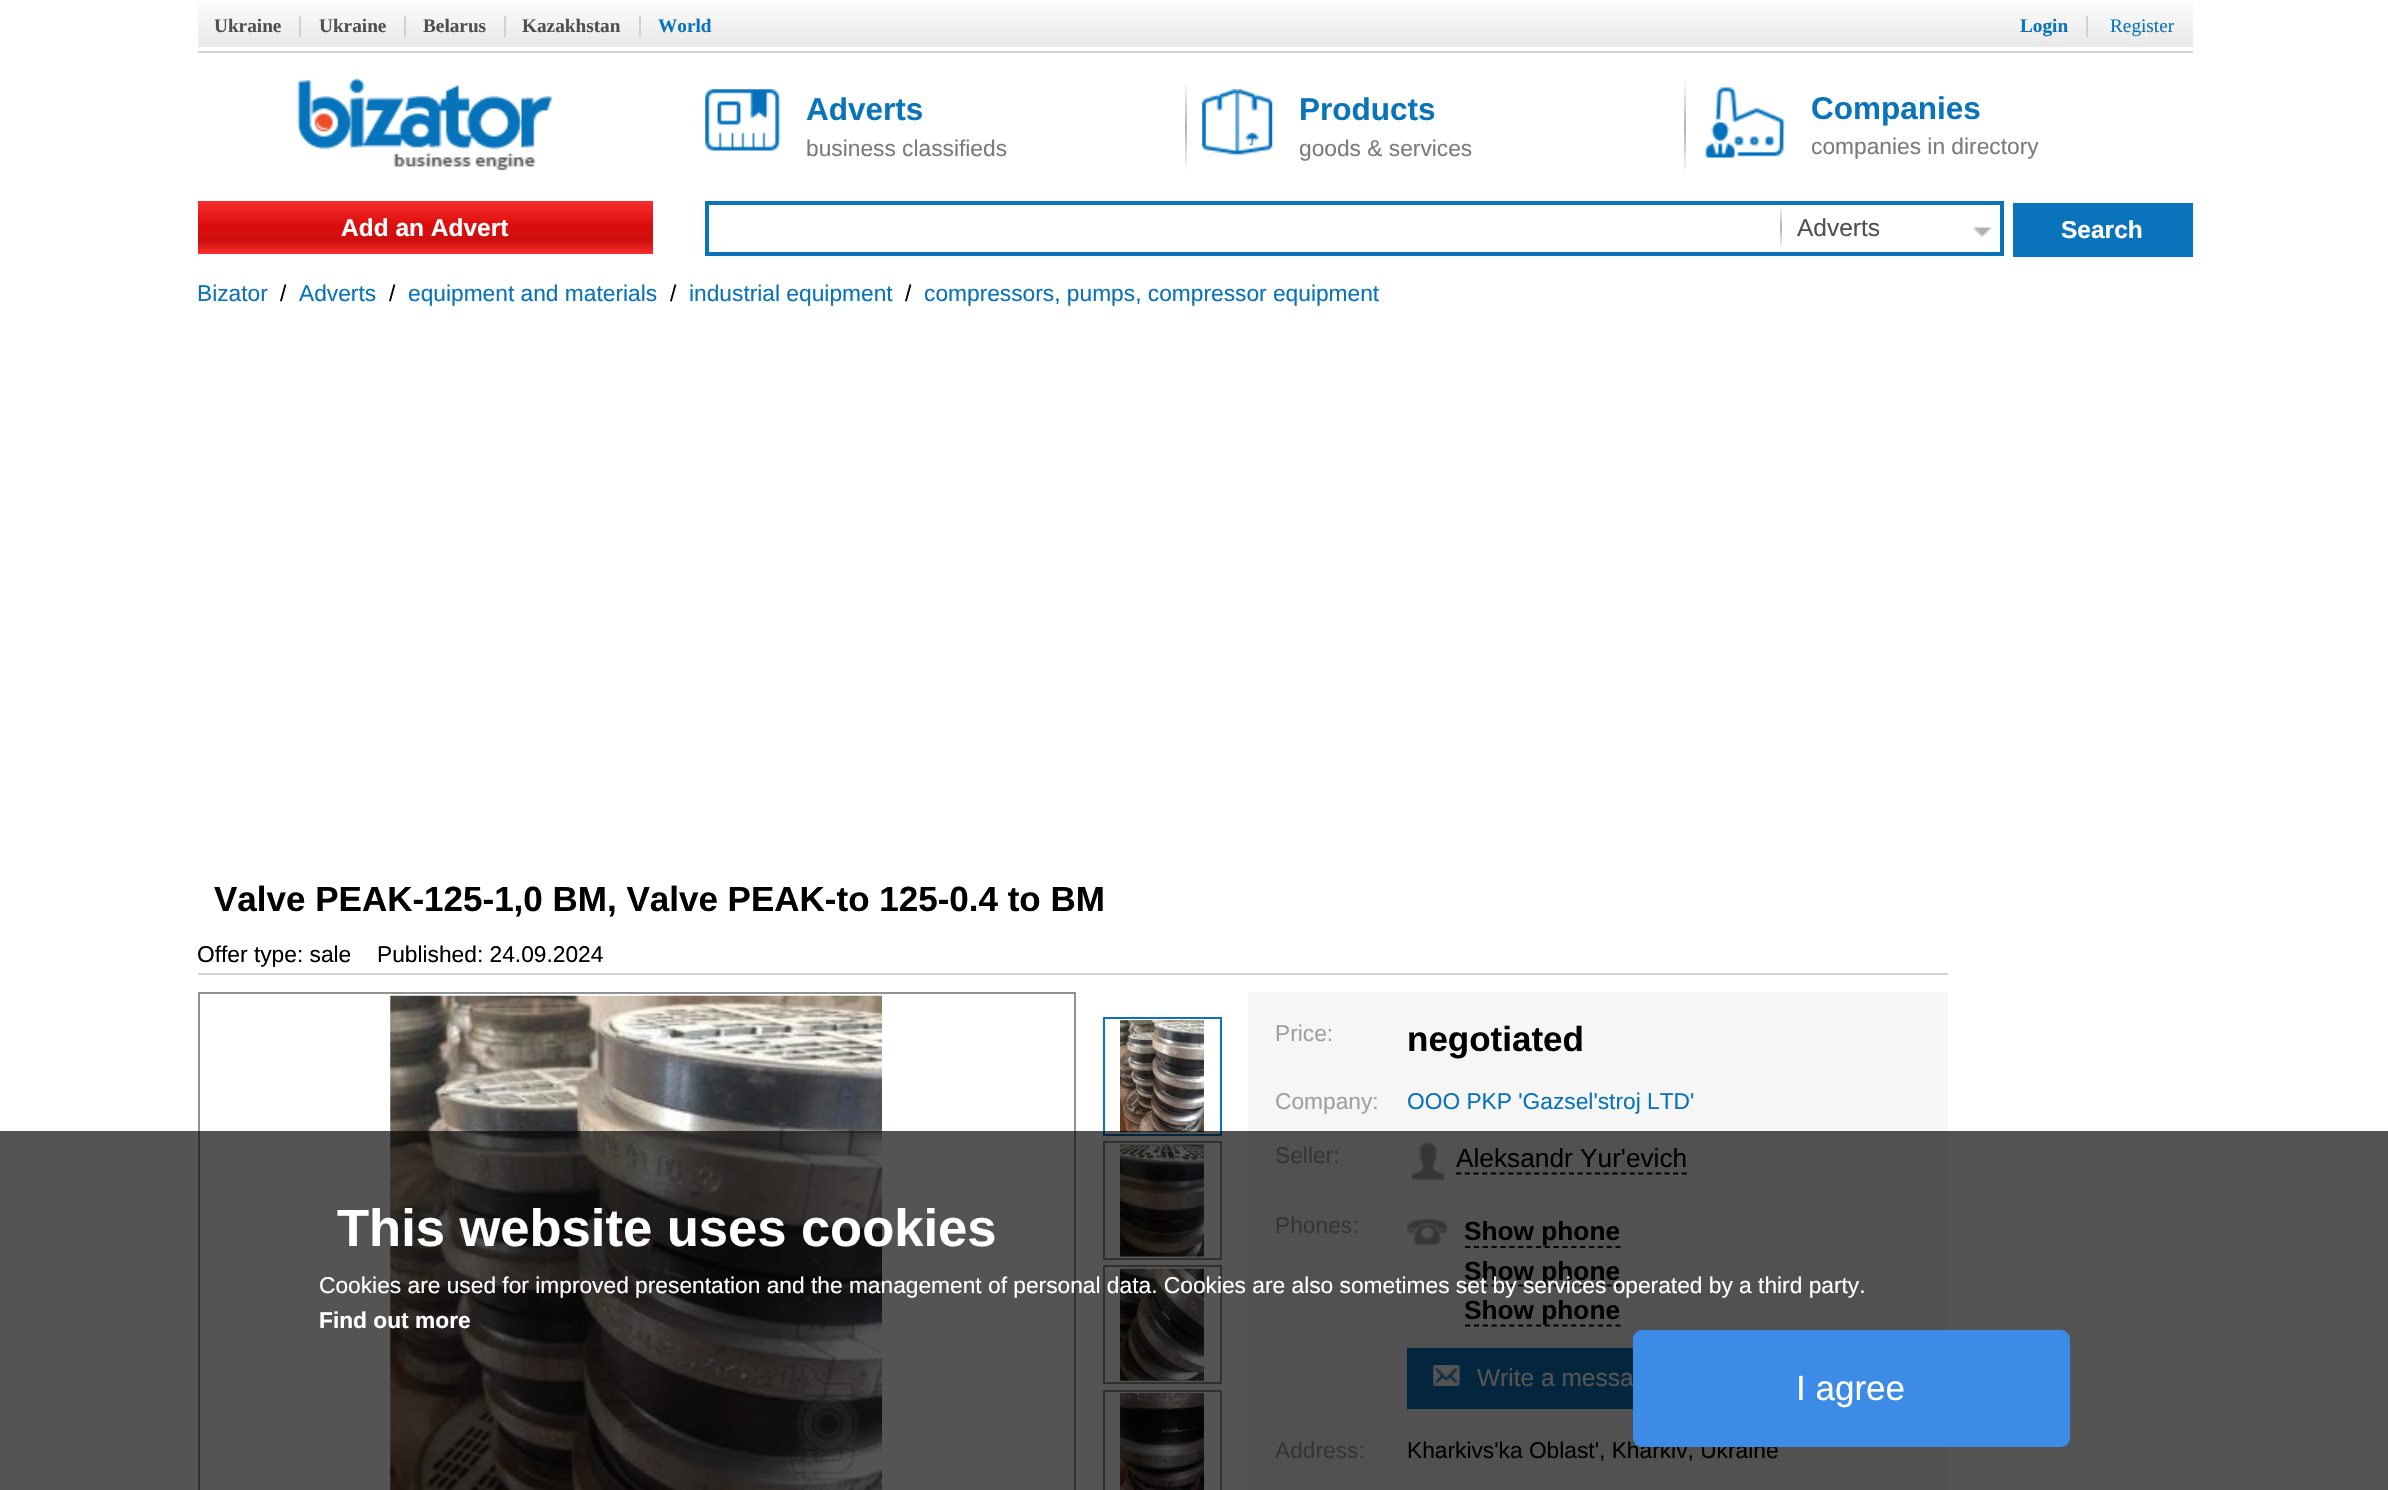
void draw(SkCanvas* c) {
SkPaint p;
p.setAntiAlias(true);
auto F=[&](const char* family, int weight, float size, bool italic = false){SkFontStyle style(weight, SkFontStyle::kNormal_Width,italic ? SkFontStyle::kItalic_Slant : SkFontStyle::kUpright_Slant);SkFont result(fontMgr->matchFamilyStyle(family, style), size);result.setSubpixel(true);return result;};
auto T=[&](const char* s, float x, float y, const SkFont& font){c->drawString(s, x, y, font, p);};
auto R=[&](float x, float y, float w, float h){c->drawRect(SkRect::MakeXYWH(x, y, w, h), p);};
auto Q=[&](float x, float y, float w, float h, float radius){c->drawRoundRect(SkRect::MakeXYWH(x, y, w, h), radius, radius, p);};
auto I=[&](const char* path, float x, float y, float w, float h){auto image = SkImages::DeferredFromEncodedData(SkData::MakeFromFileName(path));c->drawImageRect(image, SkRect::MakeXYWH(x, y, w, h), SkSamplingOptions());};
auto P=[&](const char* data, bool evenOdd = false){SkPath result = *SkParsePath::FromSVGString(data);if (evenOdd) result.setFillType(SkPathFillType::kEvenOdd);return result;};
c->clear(0xffffffff);
{
const SkColor colors[] = {0xfffdfdfd,0xffe8e8e8};
const float stops[] = {0,1};
const SkPoint ends[] = {{1195,0}, {1195,47}};
p.setShader(SkGradientShader::MakeLinear(ends, colors, stops, 2, SkTileMode::kClamp));
p.setAlpha(255);
}
R(198,1,1995,46);
p.setShader(nullptr);
p.setColor(0xffd2d2d2);
R(198,51,1995,2);
auto f1 = F("Liberation Serif",700,19.25);
p.setColor(0xff505050);
T("Ukraine",214,32,f1);
p.setColor(0xffd2d2d2);
R(299,16,2,21);
p.setColor(0xff505050);
T("Ukraine",319,32,f1);
p.setColor(0xffd2d2d2);
R(404,16,2,21);
p.setColor(0xff505050);
T("Belarus",423,32,f1);
p.setColor(0xffd2d2d2);
R(504,16,2,21);
p.setColor(0xff505050);
T("Kazakhstan",522,32,f1);
p.setColor(0xffd2d2d2);
R(639,16,2,21);
p.setColor(0xff0973bb);
T("World",658,32,f1);
T("Login",2020,32,f1);
p.setColor(0xffd2d2d2);
R(2086,16,2,21);
auto f2 = F("Liberation Serif",400,19.25);
p.setColor(0xff0973bb);
T("Register",2110,32,f2);
I("1.png",297,78,256,92);
I("2.png",705,89,76,62);
auto f3 = F("Liberation Sans",700,31.5);
T("Adverts",806,120,f3);
auto f4 = F("Liberation Sans",400,22.75);
p.setColor(0xff7b7b7b);
T("business classifieds",806,156,f4);
{
const SkColor colors[] = {0xffffffff,0xffb0b0b0,0xffffffff};
const float stops[] = {0,.5,1};
const SkPoint ends[] = {{1186,81}, {1186,173}};
p.setShader(SkGradientShader::MakeLinear(ends, colors, stops, 3, SkTileMode::kClamp));
p.setAlpha(255);
}
R(1185,81,2,92);
I("3.png",1202,89,71,67);
p.setShader(nullptr);
p.setColor(0xff0973bb);
T("Products",1299,120,f3);
p.setColor(0xff7b7b7b);
T("goods & services",1299,156,f4);
{
const SkColor colors[] = {0xffffffff,0xffb0b0b0,0xffffffff};
const float stops[] = {0,.5,1};
const SkPoint ends[] = {{1684,79}, {1684,175}};
p.setShader(SkGradientShader::MakeLinear(ends, colors, stops, 3, SkTileMode::kClamp));
p.setAlpha(255);
}
R(1684,79,2,96);
I("4.png",1704,87,81,71);
p.setShader(nullptr);
p.setColor(0xff0973bb);
T("Companies",1811,119,f3);
p.setColor(0xff7b7b7b);
T("companies in directory",1811,154,f4);
{
const SkColor colors[] = {0xfffa2e2e,0xffdc0e0e,0xffcd0e0e,0xfffa2e2e};
const float stops[] = {0,.45,.75,1};
const SkPoint ends[] = {{425,201}, {425,254}};
p.setShader(SkGradientShader::MakeLinear(ends, colors, stops, 4, SkTileMode::kClamp));
p.setAlpha(255);
}
R(198,201,455,53);
auto f5 = F("Liberation Sans",700,24.5);
p.setShader(nullptr);
p.setColor(0xffffffff);
T("Add an Advert",341,236,f5);
p.setColor(0xff0973bb);
R(705,201,1299,4);
R(2000,201,4,55);
R(705,252,1299,4);
R(705,201,4,55);
{
const SkColor colors[] = {0xffffffff,0xffb0b0b0,0xffffffff};
const float stops[] = {0,.5,1};
const SkPoint ends[] = {{1781,205}, {1781,250}};
p.setShader(SkGradientShader::MakeLinear(ends, colors, stops, 3, SkTileMode::kClamp));
p.setAlpha(255);
}
R(1780,205,2,45);
auto f6 = F("Liberation Sans",400,24.5);
p.setShader(nullptr);
p.setColor(0xff505050);
T("Adverts",1797,236,f6);
I("5.png",1972,227,20,10);
p.setColor(0xff0973bb);
R(2013,203,180,54);
p.setColor(0xffffffff);
T("Search",2061,238,f5);
p.setColor(0xff0973bb);
T("Bizator",197,301,f4);
p.setColor(0xff000000);
T("/",280,301,f4);
p.setColor(0xff0973bb);
T("Adverts",299,301,f4);
p.setColor(0xff000000);
T("/",389,301,f4);
p.setColor(0xff0973bb);
T("equipment and materials",408,301,f4);
p.setColor(0xff000000);
T("/",670,301,f4);
p.setColor(0xff0973bb);
T("industrial equipment",689,301,f4);
p.setColor(0xff000000);
T("/",905,301,f4);
p.setColor(0xff0973bb);
T("compressors, pumps, compressor equipment",924,301,f4);
auto f7 = F("Liberation Sans",700,35);
p.setColor(0xff000000);
T("Valve PEAK-125-1,0 BM, Valve PEAK-to 125-0.4 to BM",214,911,f7);
p.setColor(0xffd2d2d2);
R(198,973,1750,2);
p.setColor(0xff000000);
T("Offer type: sale",197,962,f4);
T("Published: 24.09.2024",377,962,f4);
p.setStroke(true);
p.setStrokeWidth(2);
p.setColor(0xff919191);
c->drawRect(SkRect::MakeXYWH(199,993,876,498),p);
I("6.png",390,995,492,495);
p.setColor(0xff0973bb);
c->drawRect(SkRect::MakeXYWH(1104,1018,117,117),p);
I("7.png",1120,1020,84,113);
p.setColor(0xff919191);
c->drawRect(SkRect::MakeXYWH(1104,1142,117,117),p);
I("8.png",1120,1144,84,113);
c->drawRect(SkRect::MakeXYWH(1104,1266,117,117),p);
I("9.png",1120,1268,84,113);
c->drawRect(SkRect::MakeXYWH(1104,1391,117,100),p);
I("10.png",1120,1393,84,97);
p.setStroke(false);
p.setColor(0xfff6f6f6);
R(1248,992,700,498);
p.setColor(0xffa0a0a0);
T("Price:",1275,1041,f4);
p.setColor(0xff000000);
T("negotiated",1407,1051,f7);
p.setColor(0xffa0a0a0);
T("Company:",1275,1109,f4);
p.setColor(0xff0973bb);
T("OOO PKP 'Gazsel'stroj LTD'",1407,1109,f4);
p.setColor(0xffa0a0a0);
T("Seller:",1275,1163,f4);
I("11.png",1411,1142,34,38);
auto f8 = F("Liberation Sans",400,26.25);
p.setColor(0xff000000);
T("Aleksandr Yur'evich",1456,1167,f8);
p.setStroke(true);
p.setStrokeWidth(1.8);
p.setPathEffect(SkDashPathEffect::Make({{5.25f,3.43f}}, 0));
c->drawPath(P("M1456 1173.5h231"),p);
p.setPathEffect(nullptr);
p.setStroke(false);
p.setColor(0xffa0a0a0);
T("Phones:",1275,1233,f4);
I("12.png",1407,1217,41,29);
auto f9 = F("Liberation Sans",700,26.25);
p.setColor(0xff000000);
T("Show phone",1464,1240,f9);
p.setStroke(true);
p.setPathEffect(SkDashPathEffect::Make({{5.25f,3.6f}}, 0));
c->drawPath(P("M1465 1247h155.5"),p);
p.setPathEffect(nullptr);
p.setPathEffect(SkDashPathEffect::Make({{5.25f,3.6f}}, 0));
c->drawPath(P("M1465 1285.5h155.5"),p);
p.setPathEffect(nullptr);
p.setStroke(false);
T("Show phone",1464,1280,f9);
p.setStroke(true);
p.setPathEffect(SkDashPathEffect::Make({{5.25f,3.6f}}, 0));
c->drawPath(P("M1465 1325.5h155.5"),p);
p.setPathEffect(nullptr);
p.setStroke(false);
T("Show phone",1464,1319,f9);
p.setColor(0xff0973bb);
R(1407,1348,226,61);
I("13.png",1433,1365,27,21);
p.setColor(0xffffffff);
T("Write a messa",1477,1386,f6);
p.setColor(0xffa0a0a0);
T("Address:",1275,1458,f4);
p.setColor(0xff000000);
T("Kharkivs'ka Oblast', Kharkiv, Ukraine",1407,1458,f4);
p.setColor(0xab000000);
R(0,1131,2388,359);
auto f10 = F("Liberation Sans",700,52.5);
p.setColor(0xffffffff);
T("This website uses cookies",337,1246,f10);
T("Cookies are used for improved presentation and the management of personal data. Cookies are also sometimes set by services operated by a third party.",319,1293,f4);
auto f11 = F("Liberation Sans",700,22.75);
T("Find out more",319,1328,f11);
p.setColor(0xff3b8be7);
Q(1633,1330,437,117,9);
auto f12 = F("Liberation Sans",400,35);
p.setColor(0xffffffff);
T("I agree",1796,1400,f12);
}
